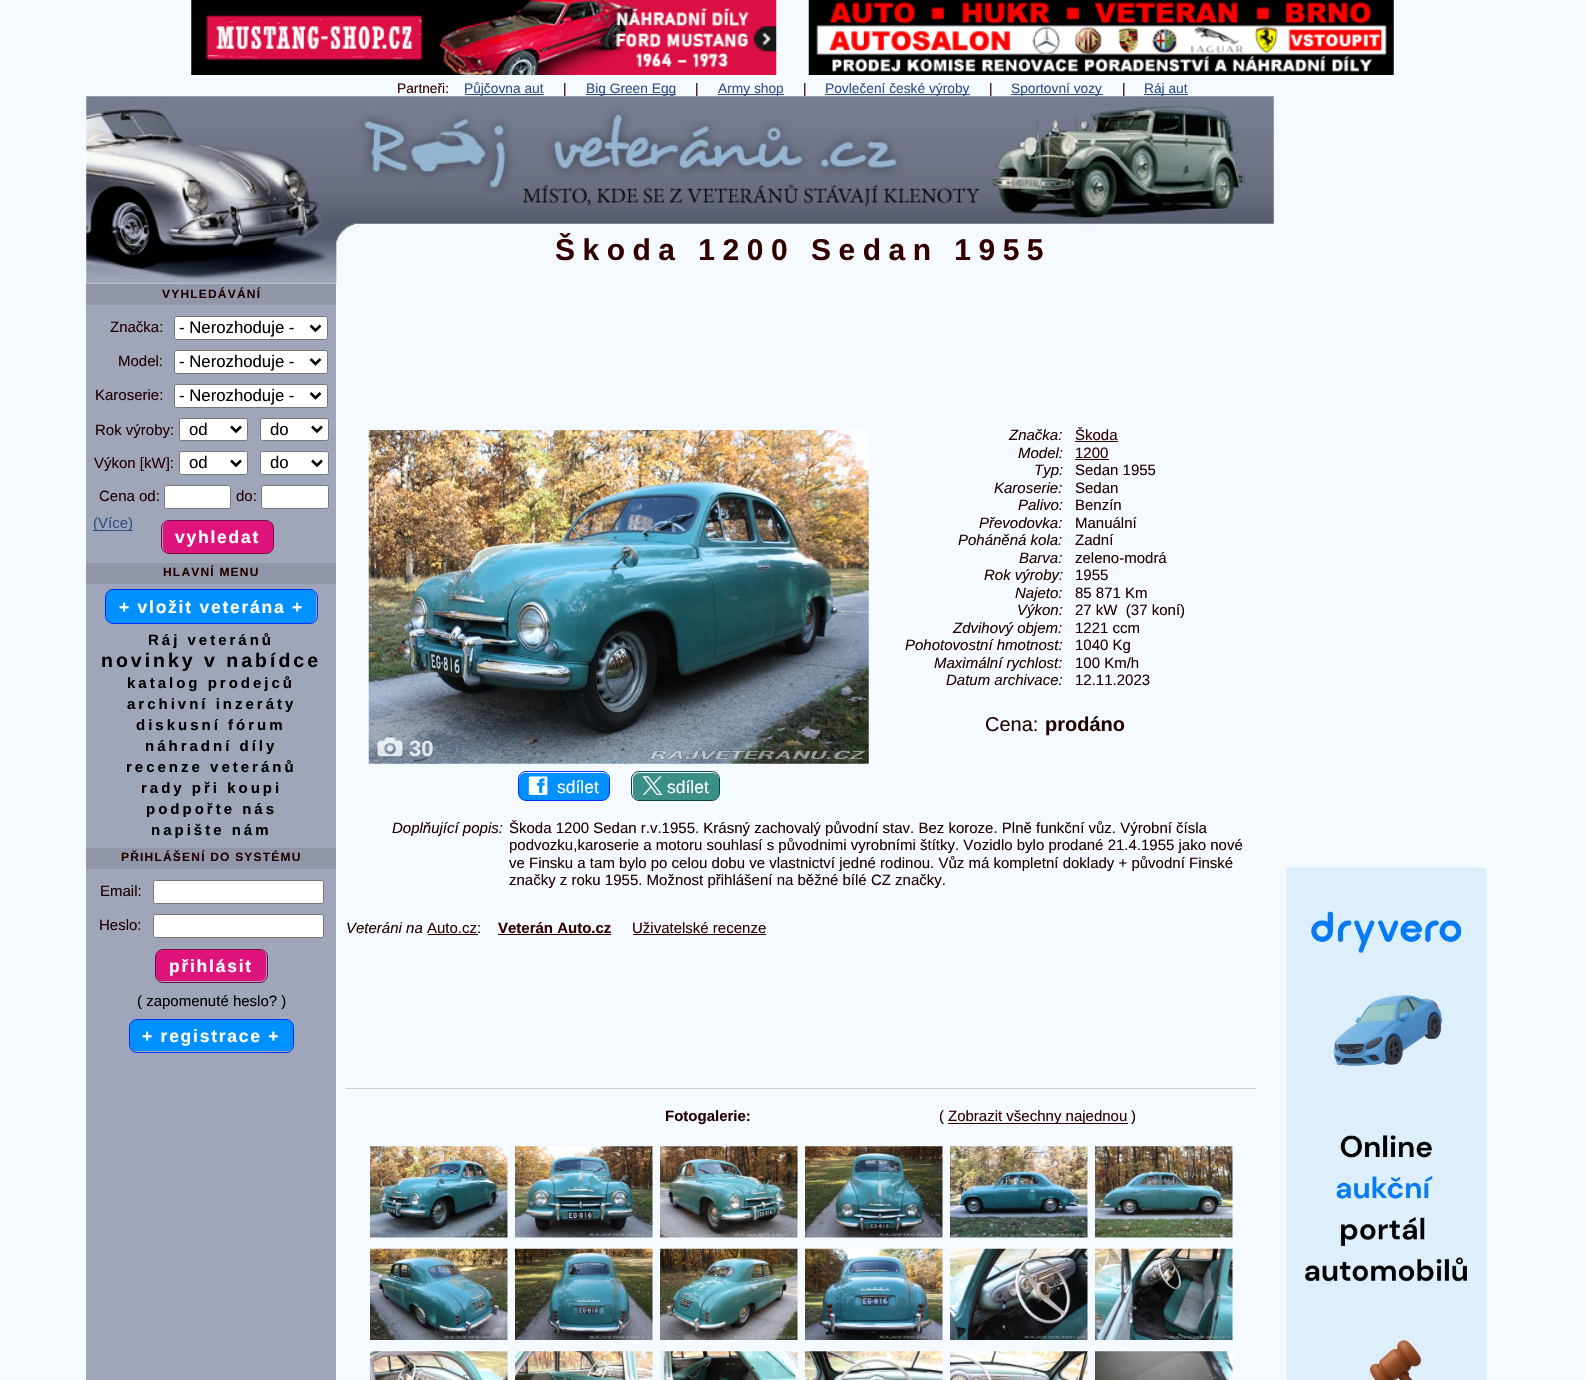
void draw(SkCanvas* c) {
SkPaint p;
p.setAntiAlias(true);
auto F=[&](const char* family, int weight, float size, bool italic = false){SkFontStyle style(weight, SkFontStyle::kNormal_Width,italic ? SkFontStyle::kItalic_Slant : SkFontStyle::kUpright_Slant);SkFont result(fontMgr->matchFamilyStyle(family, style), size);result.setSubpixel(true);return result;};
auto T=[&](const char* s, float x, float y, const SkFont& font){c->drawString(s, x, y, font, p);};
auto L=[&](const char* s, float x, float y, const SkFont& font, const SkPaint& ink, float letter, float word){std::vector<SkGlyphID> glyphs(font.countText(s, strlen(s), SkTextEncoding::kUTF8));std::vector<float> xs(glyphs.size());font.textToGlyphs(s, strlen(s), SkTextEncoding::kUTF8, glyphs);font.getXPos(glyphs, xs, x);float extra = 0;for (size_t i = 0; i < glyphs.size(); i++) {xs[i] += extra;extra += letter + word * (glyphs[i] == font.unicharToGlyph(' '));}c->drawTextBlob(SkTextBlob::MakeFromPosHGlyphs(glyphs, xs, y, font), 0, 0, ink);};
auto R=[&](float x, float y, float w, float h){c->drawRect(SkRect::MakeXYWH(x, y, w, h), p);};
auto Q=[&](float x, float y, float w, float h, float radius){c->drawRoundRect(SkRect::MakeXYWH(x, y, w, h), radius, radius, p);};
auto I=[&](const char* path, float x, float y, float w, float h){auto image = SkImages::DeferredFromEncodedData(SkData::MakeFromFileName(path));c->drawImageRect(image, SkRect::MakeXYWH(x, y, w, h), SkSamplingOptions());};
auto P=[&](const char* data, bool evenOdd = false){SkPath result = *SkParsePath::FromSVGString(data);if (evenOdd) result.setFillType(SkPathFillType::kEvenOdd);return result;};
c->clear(0xfff4faff);
I("1.png",191,0,586,75);
I("2.png",808,0,586,75);
auto f1 = F("Liberation Sans",400,13.75);
p.setColor(0xff330000);
T("Partneři:",397,93,f1);
p.setColor(0xff314f87);
R(465,94,79,1);
T("Půjčovna aut",464,93,f1);
p.setColor(0xff330000);
T("|",563,93,f1);
p.setColor(0xff314f87);
R(586,94,90,1);
T("Big Green Egg",586,93,f1);
p.setColor(0xff330000);
T("|",695,93,f1);
p.setColor(0xff314f87);
R(718,94,66,1);
T("Army shop",718,93,f1);
p.setColor(0xff330000);
T("|",803,93,f1);
p.setColor(0xff314f87);
R(825,94,145,1);
T("Povlečení české výroby",825,93,f1);
p.setColor(0xff330000);
T("|",989,93,f1);
p.setColor(0xff314f87);
R(1011,94,92,1);
T("Sportovní vozy",1011,93,f1);
p.setColor(0xff330000);
T("|",1122,93,f1);
p.setColor(0xff314f87);
R(1144,94,44,1);
T("Ráj aut",1144,93,f1);
I("3.png",86,96,1188,188);
auto f2 = F("Liberation Sans",700,30);
p.setColor(0xff330000);
L("Škoda 1200 Sedan 1955",555,260,f2,p,7.5,0);
p.setColor(0xff9fa6b9);
R(86,305,250,1075);
p.setColor(0xff9197a8);
R(86,284,250,21);
auto f3 = F("Liberation Sans",700,12);
p.setColor(0xff220000);
L("VYHLEDÁVÁNÍ",162,298,f3,p,1.2,0);
auto f4 = F("Liberation Sans",400,15);
T("Značka:",110,332,f4);
p.setColor(0xffffffff);
c->drawRoundRect(SkRect::MakeXYWH(174.5,316.5,153,23),2,2,p);
p.setStroke(true);
p.setStrokeWidth(1);
p.setColor(0xff767676);
c->drawRoundRect(SkRect::MakeXYWH(174.5,316.5,153,23),2,2,p);
p.setStrokeWidth(2.5);
p.setColor(0xff000000);
c->drawPath(P("M310.5 325.5l5 5l5-5"),p);
auto f5 = F("Liberation Sans",400,16.75);
p.setStroke(false);
T("- Nerozhoduje -",179,333,f5);
p.setColor(0xff220000);
T("Model:",118,366,f4);
p.setColor(0xffffffff);
c->drawRoundRect(SkRect::MakeXYWH(174.5,350.5,153,23),2,2,p);
p.setStroke(true);
p.setStrokeWidth(1);
p.setColor(0xff767676);
c->drawRoundRect(SkRect::MakeXYWH(174.5,350.5,153,23),2,2,p);
p.setStrokeWidth(2.5);
p.setColor(0xff000000);
c->drawPath(P("M310.5 359l5 5l5-5"),p);
p.setStroke(false);
T("- Nerozhoduje -",179,367,f5);
p.setColor(0xff220000);
T("Karoserie:",95,400,f4);
p.setColor(0xffffffff);
c->drawRoundRect(SkRect::MakeXYWH(174.5,384.5,153,23),2,2,p);
p.setStroke(true);
p.setStrokeWidth(1);
p.setColor(0xff767676);
c->drawRoundRect(SkRect::MakeXYWH(174.5,384.5,153,23),2,2,p);
p.setStrokeWidth(2.5);
p.setColor(0xff000000);
c->drawPath(P("M310.5 393l5 5l5-5"),p);
p.setStroke(false);
T("- Nerozhoduje -",179,401,f5);
p.setColor(0xff220000);
T("Rok výroby:",95,435,f4);
p.setColor(0xffffffff);
c->drawRoundRect(SkRect::MakeXYWH(179.5,418.5,68,22),2,2,p);
p.setStroke(true);
p.setStrokeWidth(1);
p.setColor(0xff767676);
c->drawRoundRect(SkRect::MakeXYWH(179.5,418.5,68,22),2,2,p);
p.setStrokeWidth(2.5);
p.setColor(0xff000000);
c->drawPath(P("M231 426.5l5 5l5-5"),p);
p.setStroke(false);
T("od",189,435,f5);
p.setColor(0xffffffff);
c->drawRoundRect(SkRect::MakeXYWH(260.5,418.5,68,22),2,2,p);
p.setStroke(true);
p.setStrokeWidth(1);
p.setColor(0xff767676);
c->drawRoundRect(SkRect::MakeXYWH(260.5,418.5,68,22),2,2,p);
p.setStrokeWidth(2.5);
p.setColor(0xff000000);
c->drawPath(P("M312 426.5l5 5l5-5"),p);
p.setStroke(false);
T("do",270,435,f5);
p.setColor(0xff220000);
T("Výkon [kW]:",94,468,f4);
p.setColor(0xffffffff);
c->drawRoundRect(SkRect::MakeXYWH(179.5,451.5,68,23),2,2,p);
p.setStroke(true);
p.setStrokeWidth(1);
p.setColor(0xff767676);
c->drawRoundRect(SkRect::MakeXYWH(179.5,451.5,68,23),2,2,p);
p.setStrokeWidth(2.5);
p.setColor(0xff000000);
c->drawPath(P("M231 460.5l5 5l5-5"),p);
p.setStroke(false);
T("od",189,468,f5);
p.setColor(0xffffffff);
c->drawRoundRect(SkRect::MakeXYWH(260.5,451.5,68,23),2,2,p);
p.setStroke(true);
p.setStrokeWidth(1);
p.setColor(0xff767676);
c->drawRoundRect(SkRect::MakeXYWH(260.5,451.5,68,23),2,2,p);
p.setStrokeWidth(2.5);
p.setColor(0xff000000);
c->drawPath(P("M312 460.5l5 5l5-5"),p);
p.setStroke(false);
T("do",270,468,f5);
p.setColor(0xff220000);
T("Cena od:",99,501,f4);
p.setColor(0xffffffff);
c->drawRoundRect(SkRect::MakeXYWH(164.5,485.5,66,23),2,2,p);
p.setStroke(true);
p.setStrokeWidth(1);
p.setColor(0xff767676);
c->drawRoundRect(SkRect::MakeXYWH(164.5,485.5,66,23),2,2,p);
p.setStroke(false);
p.setColor(0xff220000);
T("do:",236,501,f4);
p.setColor(0xffffffff);
c->drawRoundRect(SkRect::MakeXYWH(261.5,485.5,67,23),2,2,p);
p.setStroke(true);
p.setColor(0xff767676);
c->drawRoundRect(SkRect::MakeXYWH(261.5,485.5,67,23),2,2,p);
p.setStroke(false);
p.setColor(0xff314f87);
R(93,530,40,1);
T("(Více)",93,528,f4);
p.setColor(0xffde137b);
Q(163,521,110,32,6);
p.setStroke(true);
p.setColor(0xff7a0642);
c->drawRoundRect(SkRect::MakeXYWH(161.5,520.5,112,33),7.5,7.5,p);
auto f6 = F("Liberation Sans",700,17.5);
p.setStroke(false);
p.setColor(0xffffffff);
L("vyhledat",175,543,f6,p,1.75,0);
p.setColor(0xff9197a8);
R(86,563,250,21);
p.setColor(0xff220000);
L("HLAVNÍ MENU",163,576,f3,p,1.2,0);
p.setColor(0xff0090ff);
Q(106,590,210,33,6);
p.setStroke(true);
p.setColor(0xff0030ff);
c->drawRoundRect(SkRect::MakeXYWH(105.5,589.5,212,34),7.5,7.5,p);
p.setStroke(false);
p.setColor(0xffffffff);
L("+ vložit veterána +",119,613,f6,p,1.75,0);
auto f7 = F("Liberation Sans",700,15);
p.setColor(0xff000000);
L("Ráj veteránů",148,645,f7,p,3,0);
auto f8 = F("Liberation Sans",700,19.5);
L("novinky v nabídce",101,667,f8,p,3,0);
L("katalog prodejců",127,688,f7,p,3,0);
L("archivní inzeráty",127,709,f7,p,3,0);
L("diskusní fórum",136,730,f7,p,3,0);
L("náhradní díly",145,751,f7,p,3,0);
L("recenze veteránů",126,772,f7,p,3,0);
L("rady při koupi",141,793,f7,p,3,0);
L("podpořte nás",146,814,f7,p,3,0);
L("napište nám",151,835,f7,p,3,0);
p.setColor(0xff9197a8);
R(86,848,250,21);
p.setColor(0xff220000);
L("PŘIHLÁŠENÍ DO SYSTÉMU",121,861,f3,p,1.2,0);
T("Email:",100,896,f4);
p.setColor(0xffffffff);
c->drawRoundRect(SkRect::MakeXYWH(153.5,880.5,170,23),2,2,p);
p.setStroke(true);
p.setColor(0xff767676);
c->drawRoundRect(SkRect::MakeXYWH(153.5,880.5,170,23),2,2,p);
p.setStroke(false);
p.setColor(0xff220000);
T("Heslo:",99,930,f4);
p.setColor(0xffffffff);
c->drawRoundRect(SkRect::MakeXYWH(153.5,914.5,170,23),2,2,p);
p.setStroke(true);
p.setColor(0xff767676);
c->drawRoundRect(SkRect::MakeXYWH(153.5,914.5,170,23),2,2,p);
p.setStroke(false);
p.setColor(0xffde137b);
Q(156,950,110,31,6);
p.setStroke(true);
p.setColor(0xff7a0642);
c->drawRoundRect(SkRect::MakeXYWH(155.5,949.5,112,33),7.5,7.5,p);
p.setStroke(false);
p.setColor(0xffffffff);
L("přihlásit",169,972,f6,p,1.75,0);
p.setColor(0xff000000);
T("( zapomenuté heslo? )",137,1006,f4);
p.setColor(0xff0090ff);
Q(130,1020,163,31,6);
p.setStroke(true);
p.setColor(0xff0030ff);
c->drawRoundRect(SkRect::MakeXYWH(129.5,1019.5,164,33),7.5,7.5,p);
p.setStroke(false);
p.setColor(0xffffffff);
L("+ registrace +",142,1042,f6,p,1.75,0);
auto f9 = F("Liberation Sans",400,15,true);
p.setColor(0xff220000);
T("Značka:",1009,440,f9);
p.setColor(0xff330000);
T("Škoda",1075,440,f4);
R(1075,441,43,1);
p.setColor(0xff220000);
T("Model:",1018,458,f9);
p.setColor(0xff330000);
T("1200",1075,458,f4);
R(1075,459,34,1);
p.setColor(0xff220000);
T("Typ:",1034,475,f9);
T("Sedan 1955",1075,475,f4);
T("Karoserie:",994,493,f9);
T("Sedan",1075,493,f4);
T("Palivo:",1018,510,f9);
T("Benzín",1075,510,f4);
T("Převodovka:",979,528,f9);
T("Manuální",1075,528,f4);
T("Poháněná kola:",958,545,f9);
T("Zadní",1075,545,f4);
T("Barva:",1019,563,f9);
T("zeleno-modrá",1075,563,f4);
T("Rok výroby:",984,580,f9);
T("1955",1075,580,f4);
T("Najeto:",1015,598,f9);
T("85 871 Km",1075,598,f4);
T("Výkon:",1017,615,f9);
T("27 kW  (37 koní)",1075,615,f4);
T("Zdvihový objem:",953,633,f9);
T("1221 ccm",1075,633,f4);
T("Pohotovostní hmotnost:",905,650,f9);
T("1040 Kg",1075,650,f4);
T("Maximální rychlost:",934,668,f9);
T("100 Km/h",1075,668,f4);
T("Datum archivace:",946,685,f9);
T("12.11.2023",1075,685,f4);
auto f10 = F("Liberation Sans",400,20);
T("Cena:",985,731,f10);
auto f11 = F("Liberation Sans",700,20);
T("prodáno",1045,731,f11);
I("4.png",368,430,501,334);
I("5.png",377,737,26,20);
auto f12 = F("Liberation Sans",700,22);
p.setColor(0xffe3e6ea);
T("30",409,756,f12);
p.setColor(0xff0090ff);
Q(519,773,90,27,6);
p.setStroke(true);
p.setColor(0xff0030ff);
c->drawRoundRect(SkRect::MakeXYWH(518.5,771.5,91,29),7.5,7.5,p);
I("6.png",528,776,20,19);
auto f13 = F("Liberation Sans",400,17.5);
p.setStroke(false);
p.setColor(0xffffffff);
T("sdílet",557,793,f13);
p.setColor(0xff3a8f88);
Q(633,773,86,27,6);
p.setStroke(true);
p.setColor(0xff084641);
c->drawRoundRect(SkRect::MakeXYWH(631.5,771.5,88,29),7.5,7.5,p);
I("7.png",642,776,21,19);
p.setStroke(false);
p.setColor(0xffffffff);
T("sdílet",667,793,f13);
p.setColor(0xff220000);
T("Doplňující popis:",392,833,f9);
T("Škoda 1200 Sedan r.v.1955. Krásný zachovalý původní stav. Bez koroze. Plně funkční vůz. Výrobní čísla",509,833,f4);
T("podvozku,karoserie a motoru souhlasí s původnimi vyrobními štítky. Vozidlo bylo prodané 21.4.1955 jako nové",509,850,f4);
T("ve Finsku a tam bylo po celou dobu ve vlastnictví jedné rodinou. Vůz má kompletní doklady + původní Finské",509,868,f4);
T("značky z roku 1955. Možnost přihlášení na běžné bílé CZ značky.",509,885,f4);
T("Veteráni na",346,933,f9);
p.setColor(0xff330000);
T("Auto.cz",427,933,f4);
R(428,934,50,1);
p.setColor(0xff220000);
T(":",477,933,f4);
p.setColor(0xff330000);
T("Veterán Auto.cz",498,933,f7);
R(498,934,113,1);
T("Uživatelské recenze",632,933,f4);
R(633,934,133,1);
p.setColor(0xffcccccc);
R(346,1088,910,1);
p.setColor(0xff220000);
T("Fotogalerie:",665,1121,f7);
T("(",939,1121,f4);
p.setColor(0xff330000);
R(948,1123,180,1);
T("Zobrazit všechny najednou",948,1121,f4);
p.setColor(0xff220000);
T(")",1131,1121,f4);
I("8.png",370,1146,138,92);
I("9.png",515,1146,138,92);
I("10.png",660,1146,138,92);
I("11.png",805,1146,138,92);
I("12.png",950,1146,138,92);
I("13.png",1095,1146,138,92);
I("14.png",370,1248,138,92);
I("15.png",515,1248,138,92);
I("16.png",660,1248,138,92);
I("17.png",805,1248,138,92);
I("18.png",950,1248,138,92);
I("19.png",1095,1248,138,92);
I("20.png",370,1351,138,29);
I("21.png",515,1351,138,29);
I("22.png",660,1351,138,29);
I("23.png",805,1351,138,29);
I("24.png",950,1351,138,29);
I("25.png",1095,1351,138,29);
I("26.png",1286,867,201,513);
}
